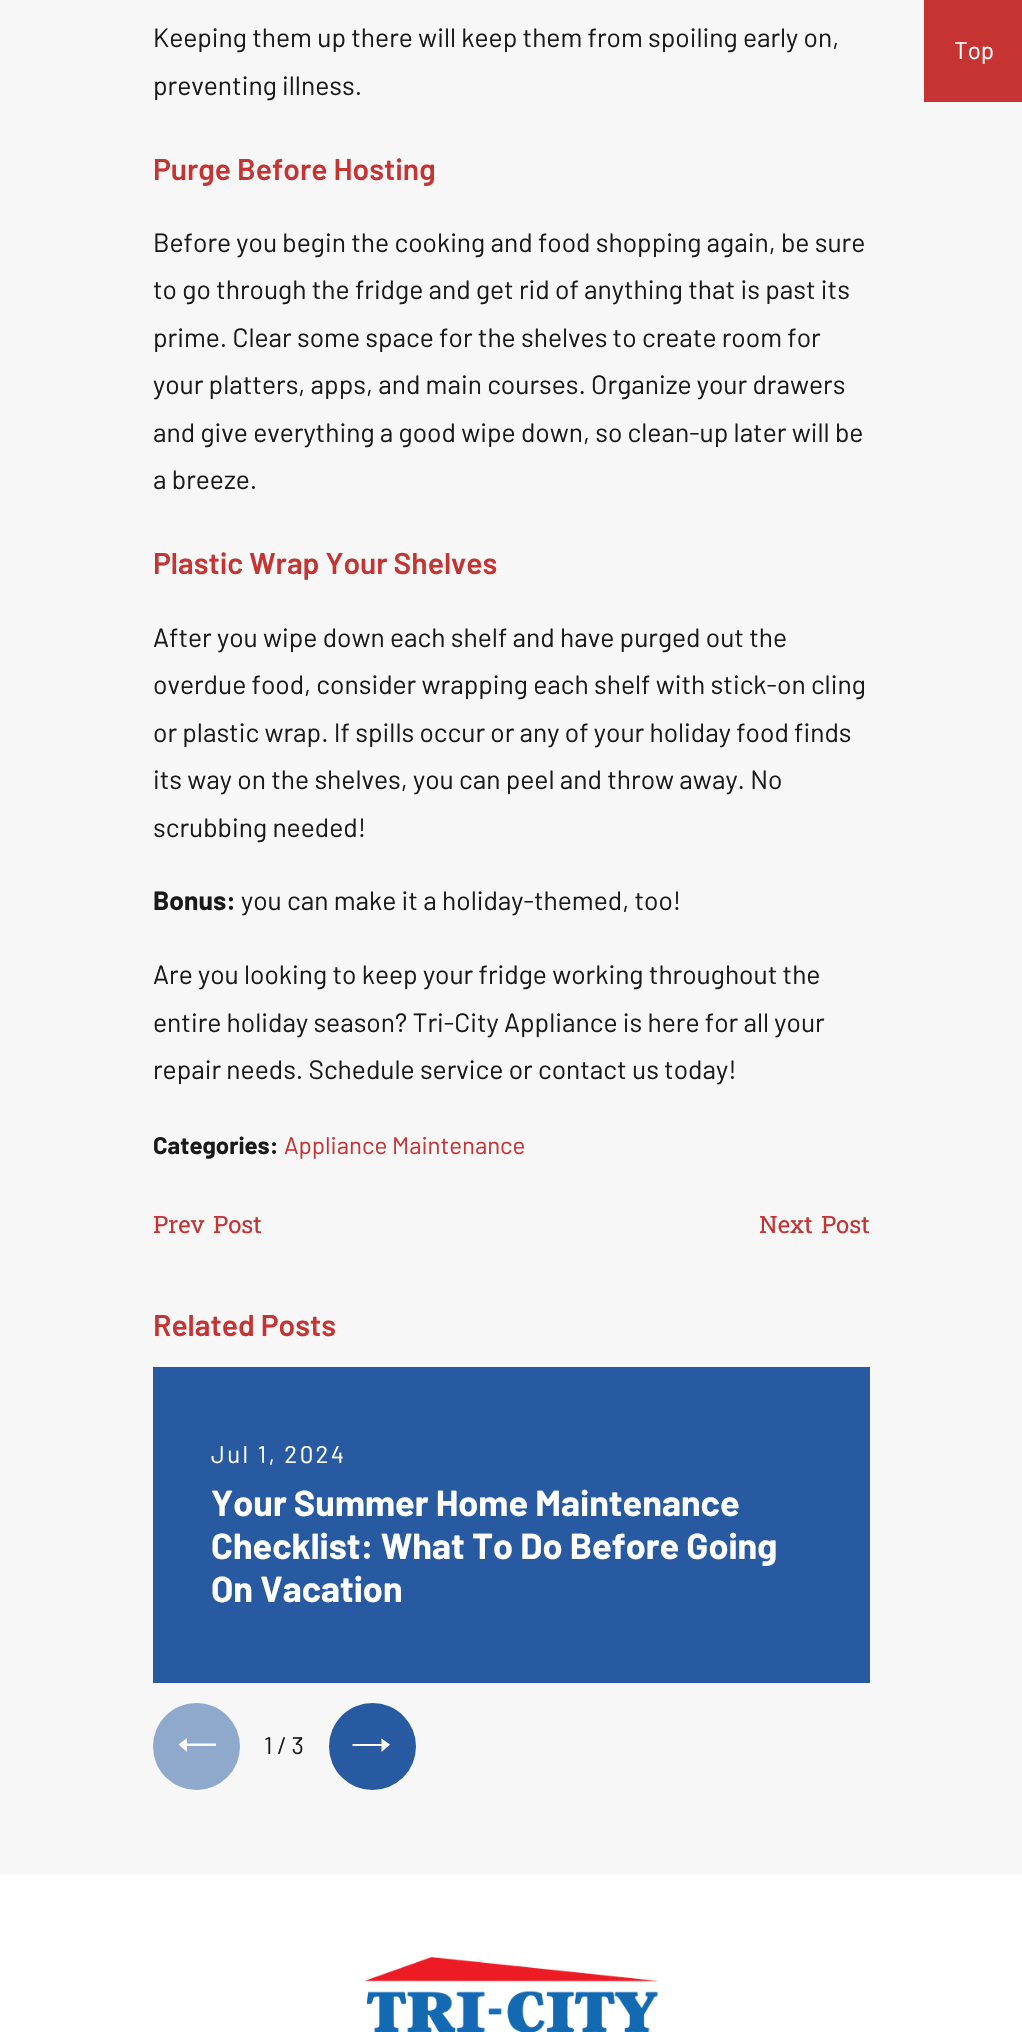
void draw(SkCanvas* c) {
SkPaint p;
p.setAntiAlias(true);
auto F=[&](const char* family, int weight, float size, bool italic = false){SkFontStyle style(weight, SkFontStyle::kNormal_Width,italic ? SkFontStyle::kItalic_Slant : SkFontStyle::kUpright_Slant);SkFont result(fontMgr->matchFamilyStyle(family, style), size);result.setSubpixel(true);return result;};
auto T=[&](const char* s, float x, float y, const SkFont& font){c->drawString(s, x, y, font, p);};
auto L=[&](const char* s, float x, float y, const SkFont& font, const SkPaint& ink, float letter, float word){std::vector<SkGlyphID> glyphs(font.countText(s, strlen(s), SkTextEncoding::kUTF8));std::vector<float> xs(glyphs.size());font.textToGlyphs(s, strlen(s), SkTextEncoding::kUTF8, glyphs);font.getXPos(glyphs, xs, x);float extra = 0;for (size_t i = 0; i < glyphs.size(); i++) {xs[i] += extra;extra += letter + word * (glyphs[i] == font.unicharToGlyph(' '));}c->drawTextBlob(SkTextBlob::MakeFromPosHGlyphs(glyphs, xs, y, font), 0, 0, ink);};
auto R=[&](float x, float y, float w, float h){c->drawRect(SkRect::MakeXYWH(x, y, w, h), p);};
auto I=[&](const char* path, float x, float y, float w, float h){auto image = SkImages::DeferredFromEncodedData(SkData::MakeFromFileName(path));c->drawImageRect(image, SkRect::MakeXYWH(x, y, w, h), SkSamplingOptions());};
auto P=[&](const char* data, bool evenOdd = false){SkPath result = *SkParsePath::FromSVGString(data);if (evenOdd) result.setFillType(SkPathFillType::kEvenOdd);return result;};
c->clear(0xffffffff);
p.setColor(0xfff7f7f7);
R(0,0,1022,1874);
auto f1 = F("Barlow",400,26.4);
p.setColor(0xff1a1a1a);
T("Keeping them up there will keep them from spoiling early on,",153,47,f1);
T("preventing illness.",153,95,f1);
auto f2 = F("Barlow",600,30);
p.setColor(0xffc63333);
T("Purge Before Hosting",153,180,f2);
p.setColor(0xff1a1a1a);
T("Before you begin the cooking and food shopping again, be sure",153,252,f1);
T("to go through the fridge and get rid of anything that is past its",153,299,f1);
T("prime. Clear some space for the shelves to create room for",153,347,f1);
T("your platters, apps, and main courses. Organize your drawers",153,394,f1);
T("and give everything a good wipe down, so clean-up later will be",153,442,f1);
T("a breeze.",153,489,f1);
p.setColor(0xffc63333);
T("Plastic Wrap Your Shelves",153,574,f2);
p.setColor(0xff1a1a1a);
T("After you wipe down each shelf and have purged out the",153,647,f1);
T("overdue food, consider wrapping each shelf with stick-on cling",153,694,f1);
T("or plastic wrap. If spills occur or any of your holiday food finds",153,742,f1);
T("its way on the shelves, you can peel and throw away. No",153,789,f1);
T("scrubbing needed!",153,837,f1);
auto f3 = F("Barlow",700,26.4);
T("Bonus:",153,910,f3);
T("you can make it a holiday-themed, too!",241,910,f1);
T("Are you looking to keep your fridge working throughout the",153,984,f1);
T("entire holiday season? Tri-City Appliance is here for all your",153,1032,f1);
T("repair needs. Schedule service or contact us today!",153,1079,f1);
auto f4 = F("Barlow",700,24);
T("Categories:",153,1154,f4);
auto f5 = F("Barlow",400,24);
p.setColor(0xffc63333);
T("Appliance Maintenance",284,1154,f5);
auto f6 = F("Hanuman",400,24);
T("Prev Post",153,1233,f6);
T("Next Post",759,1233,f6);
T("Related Posts",153,1336,f2);
p.setColor(0xff275aa1);
R(153,1367,717,316);
p.setColor(0xffffffff);
L("Jul 1, 2024",211,1463,f5,p,2.4,0);
auto f7 = F("Barlow",700,36);
T("Your Summer Home Maintenance",211,1516,f7);
T("Checklist: What To Do Before Going",211,1559,f7);
T("On Vacation",211,1602,f7);
p.setColor(0xff8fa9cc);
c->drawCircle(196.5,1746.5,43.5,p);
p.setColor(0xfffbfbfb);
c->drawPath(P("M187 1738l-8.5 6.5l8.5 7.5v-6h29v-2.5h-29z"),p);
p.setColor(0xff1a1a1a);
T("1 / 3",264,1754,f5);
p.setColor(0xff275aa1);
c->drawCircle(372.5,1746.5,43.5,p);
p.setColor(0xffffffff);
c->drawPath(P("M381.5 1738.5l8.5 6l-8.5 7.5v-6h-29v-2h29z"),p);
p.setColor(0xffc63333);
R(924,0,98,102);
p.setColor(0xffffffff);
T("Top",954,59,f5);
I("1.png",364,1957,295,75);
}
